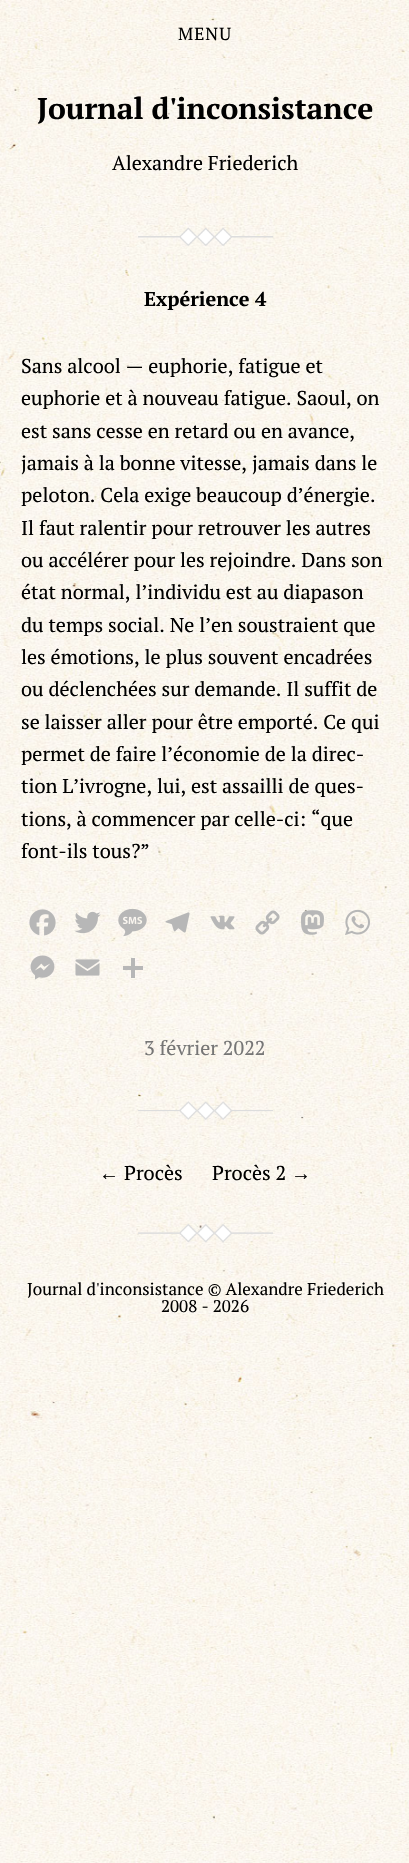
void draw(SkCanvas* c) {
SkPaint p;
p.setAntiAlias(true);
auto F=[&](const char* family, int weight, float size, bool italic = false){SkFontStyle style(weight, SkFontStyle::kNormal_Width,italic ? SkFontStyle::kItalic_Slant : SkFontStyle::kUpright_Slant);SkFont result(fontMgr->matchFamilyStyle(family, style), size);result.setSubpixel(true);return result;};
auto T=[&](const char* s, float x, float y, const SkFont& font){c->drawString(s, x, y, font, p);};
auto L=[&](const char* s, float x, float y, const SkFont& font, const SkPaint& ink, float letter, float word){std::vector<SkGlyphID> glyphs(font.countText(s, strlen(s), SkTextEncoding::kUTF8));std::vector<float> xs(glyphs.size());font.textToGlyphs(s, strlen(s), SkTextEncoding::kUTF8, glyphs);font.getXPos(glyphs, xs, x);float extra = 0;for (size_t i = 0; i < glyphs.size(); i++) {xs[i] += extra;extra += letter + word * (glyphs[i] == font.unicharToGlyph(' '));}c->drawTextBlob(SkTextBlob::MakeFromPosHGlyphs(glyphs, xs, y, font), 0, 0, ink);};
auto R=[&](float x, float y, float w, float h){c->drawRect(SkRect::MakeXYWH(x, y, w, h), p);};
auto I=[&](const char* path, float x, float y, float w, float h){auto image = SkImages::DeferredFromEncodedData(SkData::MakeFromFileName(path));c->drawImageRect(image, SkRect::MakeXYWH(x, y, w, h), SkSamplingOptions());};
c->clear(0xffffffff);
I("1.png",0,0,409,1863);
auto f1 = F("PT Serif",400,17.5);
p.setColor(0xff000000);
L("MENU",178,40,f1,p,1,0);
auto f2 = F("PT Serif",700,30);
T("Journal d'inconsistance",37,119,f2);
auto f3 = F("PT Serif",400,20);
T("Alexandre Friederich",112,170,f3);
I("2.png",138,227,135,19);
auto f4 = F("PT Serif",700,20);
T("Expérience 4",144,306,f4);
T("Sans alcool — euphorie, fatigue et",21,373,f3);
T("euphorie et à nouveau fatigue. Saoul, on",21,405,f3);
T("est sans cesse en retard ou en avance,",21,438,f3);
T("jamais à la bonne vitesse, jamais dans le",21,470,f3);
T("peloton. Cela exige beaucoup d’énergie.",21,502,f3);
T("Il faut ralentir pour retrouver les autres",21,535,f3);
T("ou accélérer pour les rejoindre. Dans son",21,567,f3);
T("état normal, l’individu est au diapason",21,599,f3);
T("du temps social. Ne l’en soustraient que",21,632,f3);
T("les émotions, le plus souvent encadrées",21,664,f3);
T("ou déclenchées sur demande. Il suffit de",21,696,f3);
T("se laisser aller pour être emporté. Ce qui",21,729,f3);
T("permet de faire l’économie de la direc-",21,761,f3);
T("tion L’ivrogne, lui, est assailli de ques-",21,793,f3);
T("tions, à commencer par celle-ci: “que",21,826,f3);
T("font-ils tous?”",21,858,f3);
I("3.png",29,909,27,27);
I("4.png",74,911,27,23);
I("5.png",118,908,29,29);
I("6.png",165,912,25,21);
I("7.png",210,915,25,15);
I("8.png",255,910,25,25);
I("9.png",301,910,23,25);
I("10.png",345,909,25,26);
I("11.png",30,955,25,25);
I("12.png",75,959,25,17);
p.setColor(0xffb7b7b7);
R(131,958,4,20);
R(123,966,20,4);
p.setColor(0xff767676);
T("3 février 2022",144,1055,f3);
I("13.png",138,1101,135,19);
auto f5 = F("Liberation Serif",400,20);
p.setColor(0xff000000);
T("←",99,1180,f5);
T("Procès",124,1180,f3);
T("Procès 2",212,1180,f3);
T("→",291,1180,f5);
I("14.png",138,1224,135,19);
auto f6 = F("PT Serif",400,17);
T("Journal d'inconsistance © Alexandre Friederich",27,1295,f6);
T("2008 - 2026",161,1312,f6);
}
